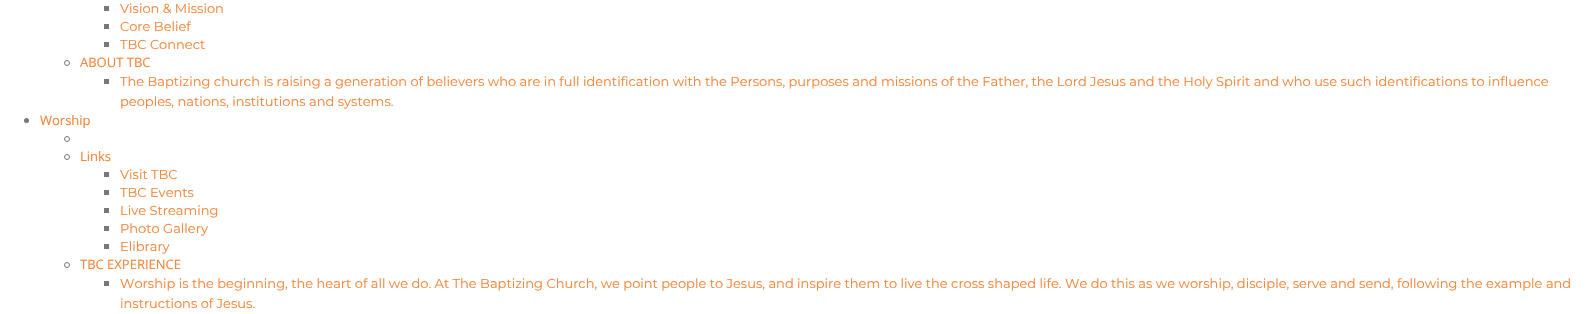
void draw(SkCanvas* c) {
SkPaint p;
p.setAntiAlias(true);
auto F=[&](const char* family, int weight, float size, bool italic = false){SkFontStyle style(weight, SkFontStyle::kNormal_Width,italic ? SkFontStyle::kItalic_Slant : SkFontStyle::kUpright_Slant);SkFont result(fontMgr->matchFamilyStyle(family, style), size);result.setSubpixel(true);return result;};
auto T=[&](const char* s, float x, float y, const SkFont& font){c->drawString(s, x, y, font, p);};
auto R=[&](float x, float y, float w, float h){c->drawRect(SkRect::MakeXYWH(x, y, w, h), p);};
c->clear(0xffffffff);
p.setColor(0xff777777);
R(104,6,5,5);
auto f1 = F("Montserrat",400,13);
p.setColor(0xfff48437);
T("Vision & Mission",120,13,f1);
p.setColor(0xff777777);
R(104,24,5,5);
p.setColor(0xfff48437);
T("Core Belief",120,31,f1);
p.setColor(0xff777777);
R(104,42,5,5);
p.setColor(0xfff48437);
T("TBC Connect",120,49,f1);
p.setStroke(true);
p.setStrokeWidth(1);
p.setColor(0xff777777);
c->drawCircle(67,63,2.5,p);
auto f2 = F("Open Sans",400,13);
p.setStroke(false);
p.setColor(0xfff48437);
T("ABOUT TBC",80,67,f2);
p.setColor(0xff777777);
R(104,79,5,5);
p.setColor(0xfff48437);
T("The Baptizing church is raising a generation of believers who are in full identification with the Persons, purposes and missions of the Father, the Lord Jesus and the Holy Spirit and who use such identifications to influence",120,86,f1);
T("peoples, nations, institutions and systems.",120,106,f1);
p.setColor(0xff777777);
c->drawCircle(26.5,120.5,2.5,p);
p.setColor(0xfff48437);
T("Worship",40,125,f2);
p.setStroke(true);
p.setColor(0xff777777);
c->drawCircle(67,139,2.5,p);
c->drawCircle(67,157,2.5,p);
p.setStroke(false);
p.setColor(0xfff48437);
T("Links",80,161,f2);
p.setColor(0xff777777);
R(104,172,5,5);
p.setColor(0xfff48437);
T("Visit TBC",120,179,f1);
p.setColor(0xff777777);
R(104,190,5,5);
p.setColor(0xfff48437);
T("TBC Events",120,197,f1);
p.setColor(0xff777777);
R(104,208,5,5);
p.setColor(0xfff48437);
T("Live Streaming",120,215,f1);
p.setColor(0xff777777);
R(104,226,5,5);
p.setColor(0xfff48437);
T("Photo Gallery",120,233,f1);
p.setColor(0xff777777);
R(104,244,5,5);
p.setColor(0xfff48437);
T("Elibrary",120,251,f1);
p.setStroke(true);
p.setColor(0xff777777);
c->drawCircle(67,265,2.5,p);
p.setStroke(false);
p.setColor(0xfff48437);
T("TBC EXPERIENCE",80,269,f2);
p.setColor(0xff777777);
R(104,281,5,5);
p.setColor(0xfff48437);
T("Worship is the beginning, the heart of all we do. At The Baptizing Church, we point people to Jesus, and inspire them to live the cross shaped life. We do this as we worship, disciple, serve and send, following the example and",120,288,f1);
T("instructions of Jesus.",120,308,f1);
}
